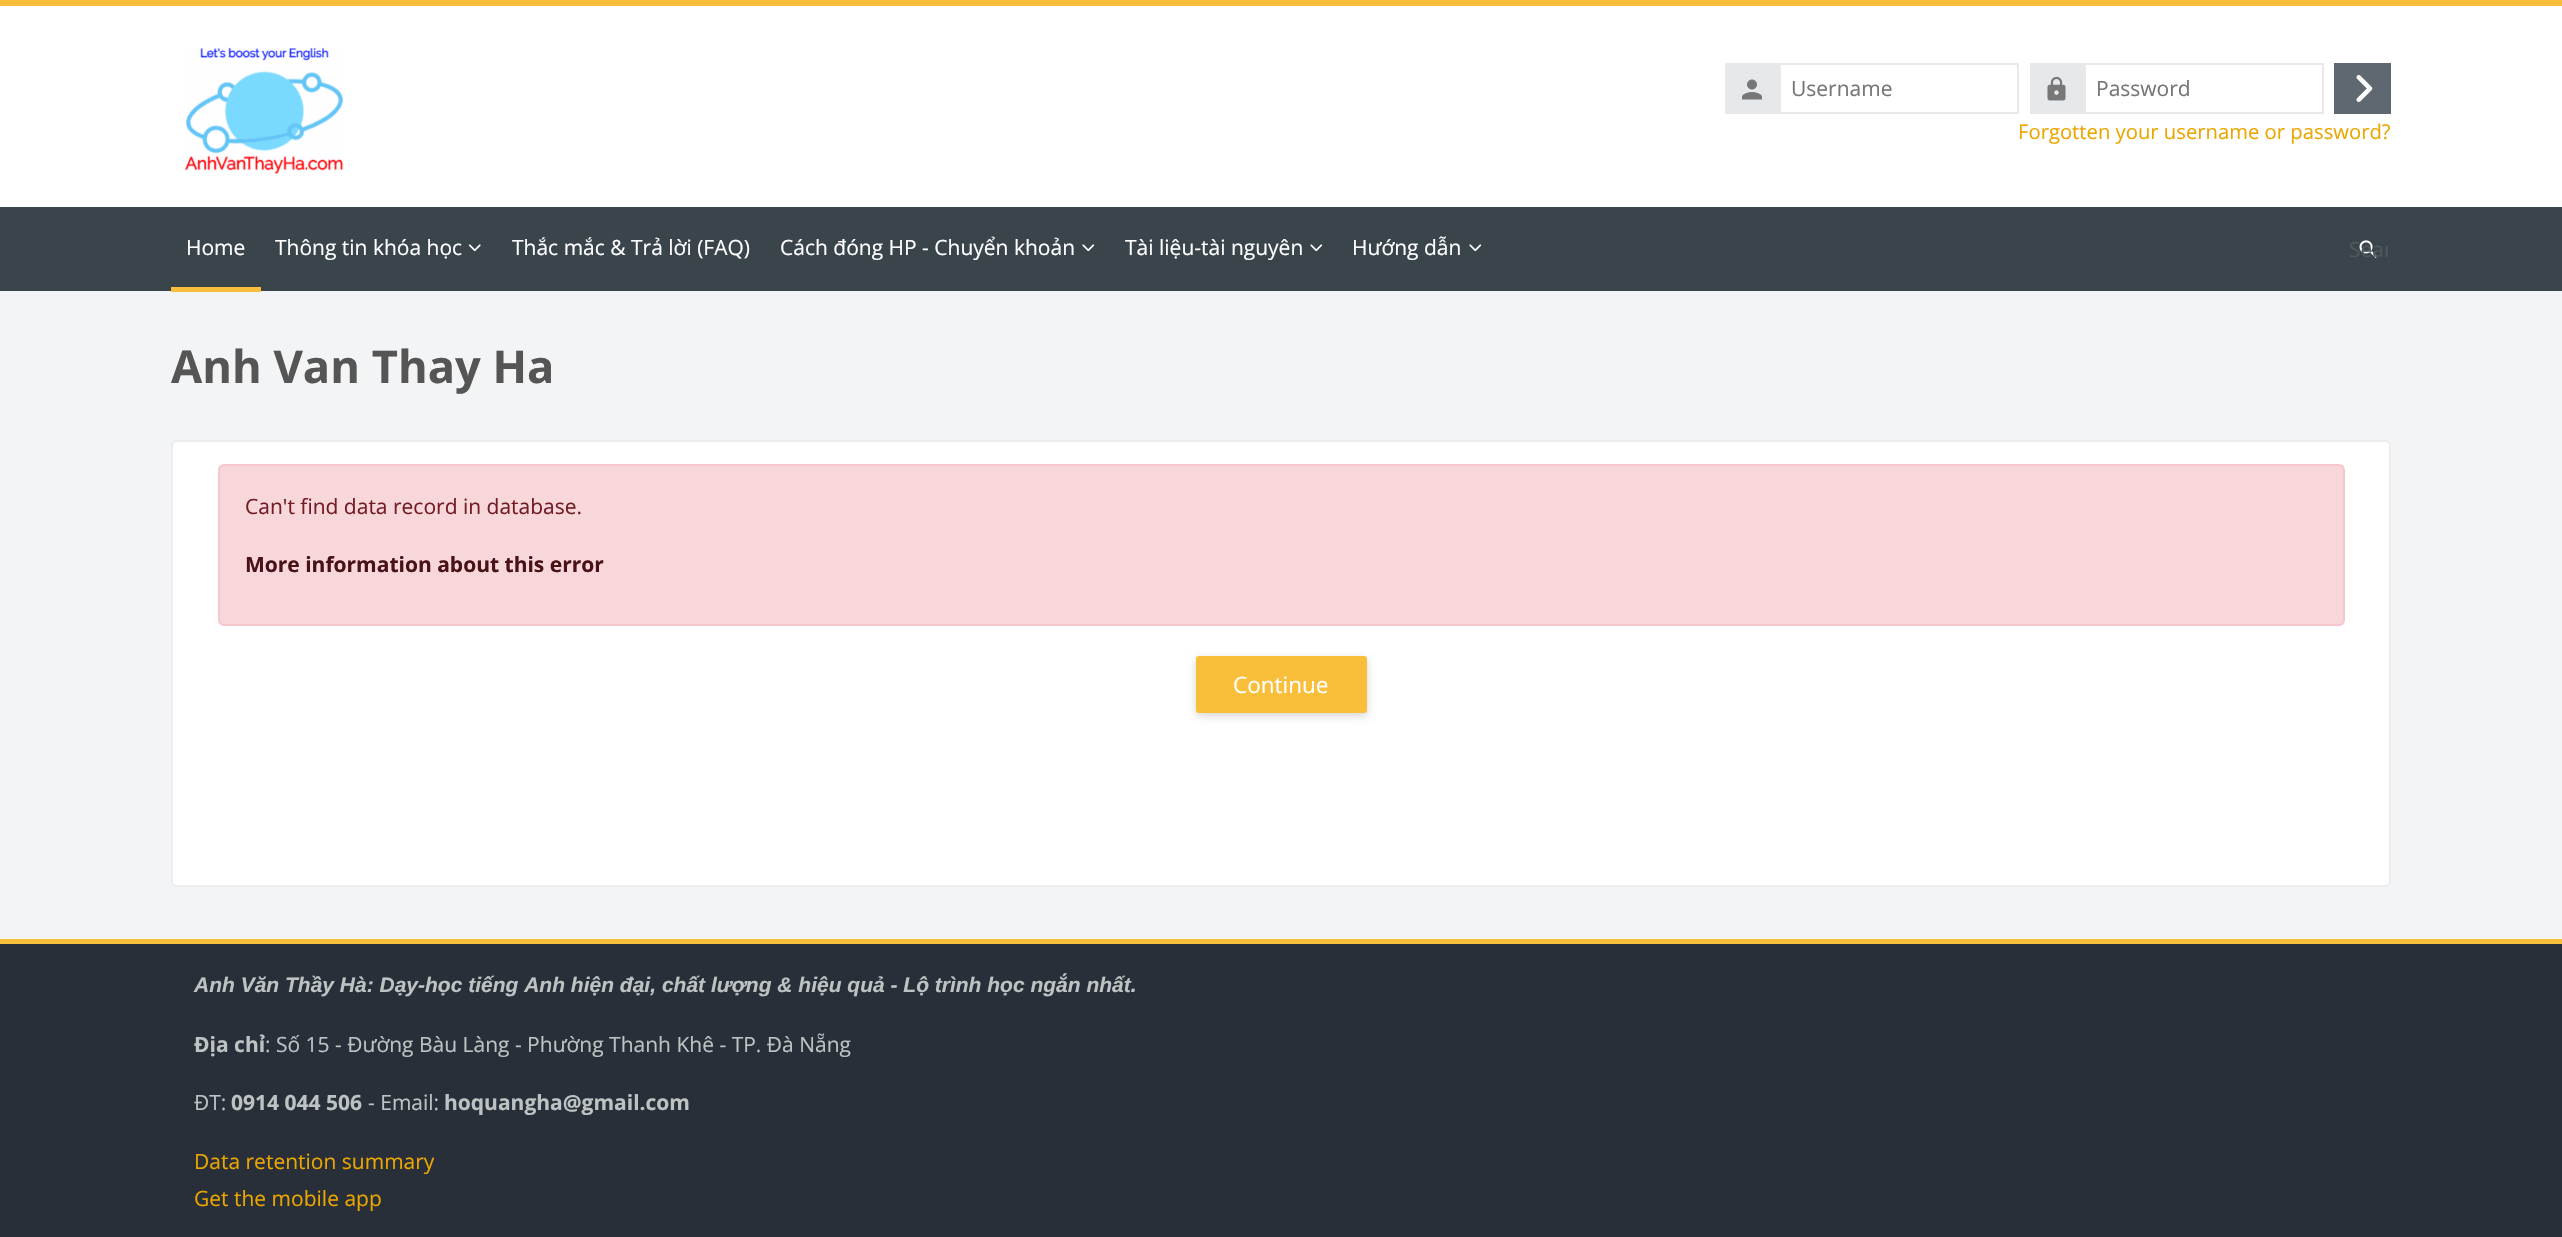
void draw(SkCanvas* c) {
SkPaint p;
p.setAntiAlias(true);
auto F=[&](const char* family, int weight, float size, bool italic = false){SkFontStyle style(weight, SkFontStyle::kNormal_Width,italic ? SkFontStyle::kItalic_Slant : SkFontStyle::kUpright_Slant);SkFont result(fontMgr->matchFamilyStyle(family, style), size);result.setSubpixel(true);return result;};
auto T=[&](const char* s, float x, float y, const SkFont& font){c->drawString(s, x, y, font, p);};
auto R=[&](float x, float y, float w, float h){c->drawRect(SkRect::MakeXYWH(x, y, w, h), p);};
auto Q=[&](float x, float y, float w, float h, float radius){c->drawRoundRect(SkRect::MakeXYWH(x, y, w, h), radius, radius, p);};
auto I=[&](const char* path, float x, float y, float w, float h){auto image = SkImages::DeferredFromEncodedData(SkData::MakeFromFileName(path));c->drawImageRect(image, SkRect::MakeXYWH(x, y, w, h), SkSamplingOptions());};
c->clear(0xfff2f4f6);
p.setColor(0xfff9bf3b);
R(0,0,2562,6);
p.setColor(0xffffffff);
R(0,6,2562,201);
I("1.png",184,47,160,128);
p.setColor(0xffe6e9ec);
R(1725,63,54,51);
I("2.png",1742,79,20,21);
p.setStroke(true);
p.setStrokeWidth(2);
p.setColor(0xffe9e9e9);
c->drawRect(SkRect::MakeXYWH(1780,64,238,49),p);
auto f1 = F("Open Sans",400,21);
p.setStroke(false);
p.setColor(0xff757575);
T("Username",1791,96,f1);
p.setColor(0xffe6e9ec);
R(2030,63,54,51);
I("3.png",2047,76,19,25);
p.setStroke(true);
p.setColor(0xffe9e9e9);
c->drawRect(SkRect::MakeXYWH(2085,64,238,49),p);
p.setStroke(false);
p.setColor(0xff757575);
T("Password",2096,96,f1);
p.setColor(0xff5f6870);
R(2334,63,57,51);
I("4.png",2356,75,17,27);
auto f2 = F("Open Sans",400,20.25);
p.setColor(0xffeba600);
T("Forgotten your username or password?",2018,139,f2);
p.setColor(0xff3a454b);
R(0,207,2562,84);
p.setColor(0xfff9bf3b);
R(171,287,90,5);
p.setColor(0xffffffff);
T("Home",186,255,f1);
T("Thông tin khóa học",275,255,f1);
I("5.png",468,244,13,8);
T("Thắc mắc & Trả lời (FAQ)",512,255,f1);
T("Cách đóng HP - Chuyển khoản",780,255,f1);
I("6.png",1082,244,13,8);
T("Tài liệu-tài nguyên",1125,255,f1);
I("6.png",1310,244,13,8);
T("Hướng dẫn",1352,255,f1);
I("6.png",1469,244,13,8);
I("7.png",2359,240,18,18);
c->save();
c->clipRect(SkRect::MakeXYWH(2349,234,39,29));
p.setColor(0xff4e585d);
T("Sear",2349,257,f1);
c->restore();
auto f3 = F("Open Sans",700,45.25);
p.setColor(0xff555555);
T("Anh Van Thay Ha",171,383,f3);
p.setColor(0xffffffff);
Q(171,440,2220,447,6);
p.setStroke(true);
p.setColor(0x12000000);
c->drawRoundRect(SkRect::MakeXYWH(172,441,2218,445),5,5,p);
p.setStroke(false);
p.setColor(0xfff8d7da);
c->drawRoundRect(SkRect::MakeXYWH(219,465,2125,160),5,5,p);
p.setStroke(true);
p.setColor(0xfff5c6cb);
c->drawRoundRect(SkRect::MakeXYWH(219,465,2125,160),5,5,p);
p.setStroke(false);
p.setColor(0xff721c24);
T("Can't find data record in database.",245,514,f1);
auto f4 = F("Open Sans",700,21);
p.setColor(0xff491217);
T("More information about this error",245,572,f4);
p.setColor(0x29000000);
p.setMaskFilter(SkMaskFilter::MakeBlur(kNormal_SkBlurStyle, 4));
c->drawRoundRect(SkRect::MakeXYWH(1196,659,171,57),3,3,p);
p.setMaskFilter(nullptr);
p.setColor(0xfff9bf3b);
Q(1196,656,171,57,3);
auto f5 = F("Open Sans",400,22.5);
p.setColor(0xffffffff);
T("Continue",1233,693,f5);
p.setColor(0xfff9bf3b);
R(0,939,2562,5);
p.setColor(0xff292f38);
R(0,944,2562,293);
auto f6 = F("Liberation Sans",700,21,true);
p.setColor(0xffbdc3c2);
T("Anh Văn Thầy Hà: Dạy-học tiếng Anh hiện đại, chất lượng & hiệu quả - Lộ trình học ngắn nhất.",194,992,f6);
T("Địa chỉ",194,1052,f4);
T(": Số 15 - Đường Bàu Làng - Phường Thanh Khê - TP. Đà Nẵng",265,1052,f1);
T("ĐT:",194,1110,f1);
T("0914 044 506",231,1110,f4);
T("- Email:",368,1110,f1);
T("hoquangha@gmail.com",444,1110,f4);
p.setColor(0xffeba600);
T("Data retention summary",194,1169,f1);
T("Get the mobile app",194,1206,f1);
}
